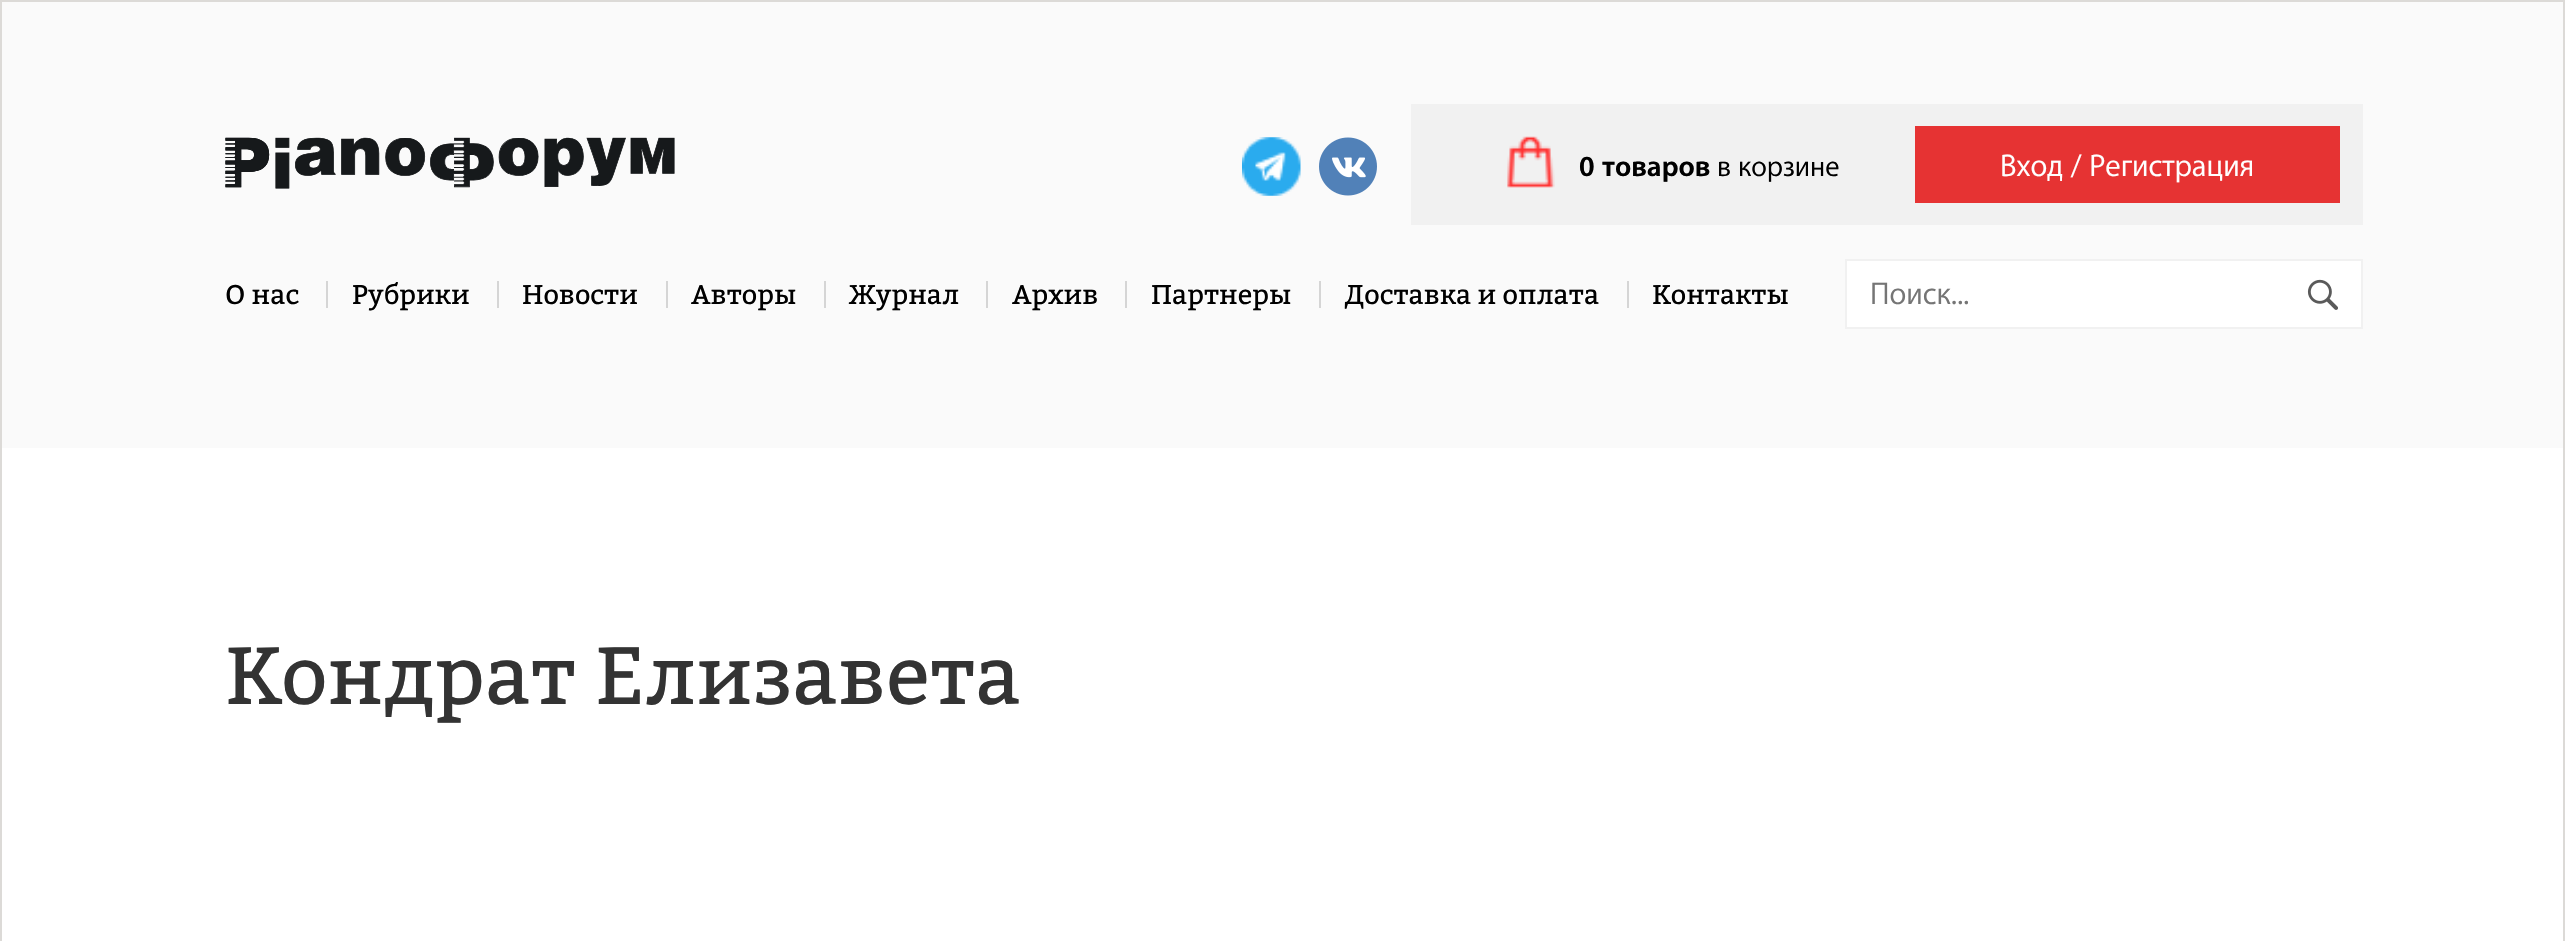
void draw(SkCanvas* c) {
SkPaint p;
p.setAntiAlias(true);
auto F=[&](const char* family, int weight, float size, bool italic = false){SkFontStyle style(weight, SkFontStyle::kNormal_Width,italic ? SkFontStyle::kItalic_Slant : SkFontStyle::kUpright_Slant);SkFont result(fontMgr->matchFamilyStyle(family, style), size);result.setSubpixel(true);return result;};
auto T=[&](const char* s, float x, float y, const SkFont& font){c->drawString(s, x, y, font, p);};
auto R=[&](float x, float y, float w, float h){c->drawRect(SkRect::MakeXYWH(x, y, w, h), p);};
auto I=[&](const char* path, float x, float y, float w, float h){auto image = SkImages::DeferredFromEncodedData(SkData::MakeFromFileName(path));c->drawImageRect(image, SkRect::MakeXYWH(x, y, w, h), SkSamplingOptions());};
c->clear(0xffffffff);
p.setStroke(true);
p.setStrokeWidth(2);
p.setColor(0xffdcdad7);
c->drawRect(SkRect::MakeXYWH(1,1,2563,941),p);
p.setStroke(false);
p.setColor(0xfffafafa);
R(2,2,2561,446);
I("1.png",225,137,450,52);
I("2.png",1242,137,59,59);
I("3.png",1319,137,58,59);
p.setColor(0xfff1f1f1);
R(1411,104,952,121);
I("4.png",1507,136,48,52);
auto f1 = F("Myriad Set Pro",700,29.25);
p.setColor(0xff000000);
T("0",1579,176,f1);
T("товаров",1602,176,f1);
auto f2 = F("Myriad Set Pro",400,29.25);
T("в корзине",1717,176,f2);
p.setColor(0xffe63333);
R(1915,126,425,77);
auto f3 = F("Myriad Set Pro",400,31.5);
p.setColor(0xffffffff);
T("Вход / Регистрация",2000,176,f3);
auto f4 = F("Bitter",400,27);
p.setColor(0xff000000);
T("О нас",225,304,f4);
p.setColor(0xffd5d5d5);
R(326,281,2,27);
p.setColor(0xff000000);
T("Рубрики",352,304,f4);
p.setColor(0xffd5d5d5);
R(497,281,2,27);
p.setColor(0xff000000);
T("Новости",522,304,f4);
p.setColor(0xffd5d5d5);
R(666,281,2,27);
p.setColor(0xff000000);
T("Авторы",691,304,f4);
p.setColor(0xffd5d5d5);
R(824,281,2,27);
p.setColor(0xff000000);
T("Журнал",849,304,f4);
p.setColor(0xffd5d5d5);
R(986,281,2,27);
p.setColor(0xff000000);
T("Архив",1012,304,f4);
p.setColor(0xffd5d5d5);
R(1125,281,2,27);
p.setColor(0xff000000);
T("Партнеры",1151,304,f4);
p.setColor(0xffd5d5d5);
R(1319,281,2,27);
p.setColor(0xff000000);
T("Доставка и оплата",1344,304,f4);
p.setColor(0xffd5d5d5);
R(1627,281,2,27);
p.setColor(0xff000000);
T("Контакты",1652,304,f4);
p.setColor(0xffffffff);
c->drawRect(SkRect::MakeXYWH(1846,260,516,68),p);
p.setStroke(true);
p.setColor(0xfff1f1f1);
c->drawRect(SkRect::MakeXYWH(1846,260,516,68),p);
p.setStroke(false);
p.setColor(0xff757575);
T("Поиск...",1870,304,f3);
I("5.png",2307,279,31,31);
auto f5 = F("Bitter",400,81);
p.setColor(0xff333333);
T("Кондрат Елизавета",225,704,f5);
}
